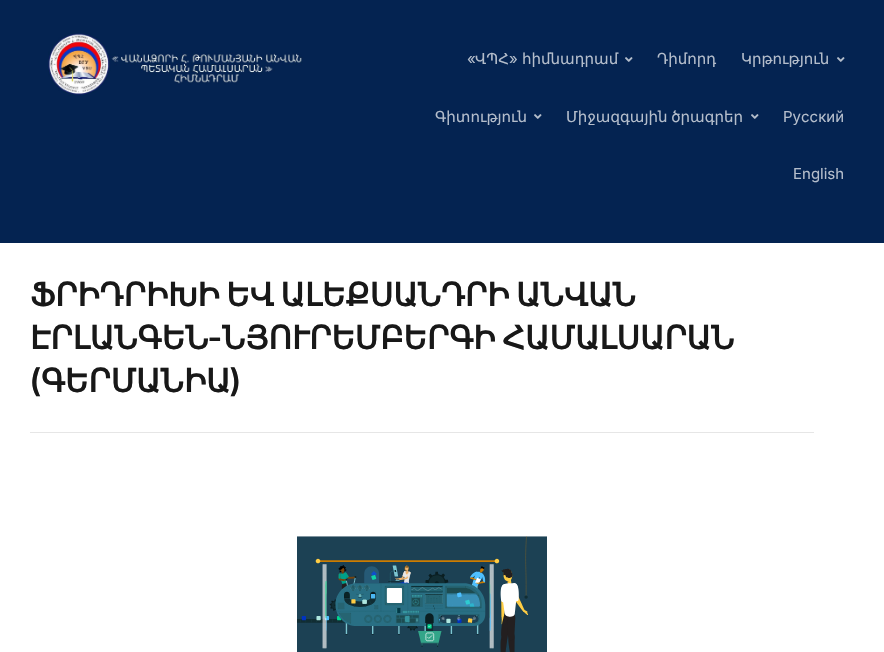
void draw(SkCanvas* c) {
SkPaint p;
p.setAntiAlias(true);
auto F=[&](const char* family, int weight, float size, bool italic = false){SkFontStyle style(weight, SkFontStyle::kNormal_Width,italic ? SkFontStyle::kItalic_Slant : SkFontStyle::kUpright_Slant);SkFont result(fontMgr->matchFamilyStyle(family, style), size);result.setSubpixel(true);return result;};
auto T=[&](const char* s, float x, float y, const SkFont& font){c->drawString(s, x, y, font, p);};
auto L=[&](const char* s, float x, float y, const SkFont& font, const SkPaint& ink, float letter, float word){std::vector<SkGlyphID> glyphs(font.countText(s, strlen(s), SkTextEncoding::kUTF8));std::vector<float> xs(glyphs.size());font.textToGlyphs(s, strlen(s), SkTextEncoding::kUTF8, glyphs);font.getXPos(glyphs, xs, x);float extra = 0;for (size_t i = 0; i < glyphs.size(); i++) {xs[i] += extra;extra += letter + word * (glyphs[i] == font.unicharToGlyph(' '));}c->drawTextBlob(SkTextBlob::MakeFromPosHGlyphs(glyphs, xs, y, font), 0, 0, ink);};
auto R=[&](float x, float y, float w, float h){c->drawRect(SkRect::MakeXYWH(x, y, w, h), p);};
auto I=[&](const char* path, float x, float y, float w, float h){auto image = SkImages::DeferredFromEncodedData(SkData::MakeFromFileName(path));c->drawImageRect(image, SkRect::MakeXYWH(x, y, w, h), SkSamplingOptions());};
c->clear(0xff042351);
I("1.png",48,33,255,63);
auto f1 = F("Inter",400,15);
p.setColor(0xffb4bdcb);
T("«",467,64,f1);
auto f2 = F("DejaVu Sans",400,15);
T("ՎՊՀ",475,64,f2);
T("»",509,64,f1);
T("հիմնադրամ",522,64,f2);
I("2.png",625,57,8,5);
T("Դիմորդ",657,64,f2);
T("Կրթություն",741,64,f2);
I("2.png",837,57,8,5);
T("Գիտություն",435,122,f2);
I("2.png",534,114,8,5);
L("Միջազգային ծրագրեր",566,122,f2,p,0,-1);
I("2.png",751,114,8,5);
T("Русский",783,122,f1);
T("English",793,179,f1);
p.setColor(0xffffffff);
R(0,243,884,409);
p.setColor(0xffe6e6e6);
R(30,432,784,1);
auto f3 = F("DejaVu Sans",700,32);
p.setColor(0xff181818);
L("ՖՐԻԴՐԻԽԻ ԵՎ ԱԼԵՔՍԱՆԴՐԻ ԱՆՎԱՆ",30,306,f3,p,0,-3.5);
T("ԷՐԼԱՆԳԵՆ",30,349,f3);
auto f4 = F("Inter Tight",600,32);
T("-",208,349,f4);
L("ՆՅՈՒՐԵՄԲԵՐԳԻ ՀԱՄԱԼՍԱՐԱՆ",222,349,f3,p,0,-3.5);
T("(",30,392,f4);
T("ԳԵՐՄԱՆԻԱ",41,392,f3);
T(")",230,392,f4);
I("3.png",297,536,250,116);
}
